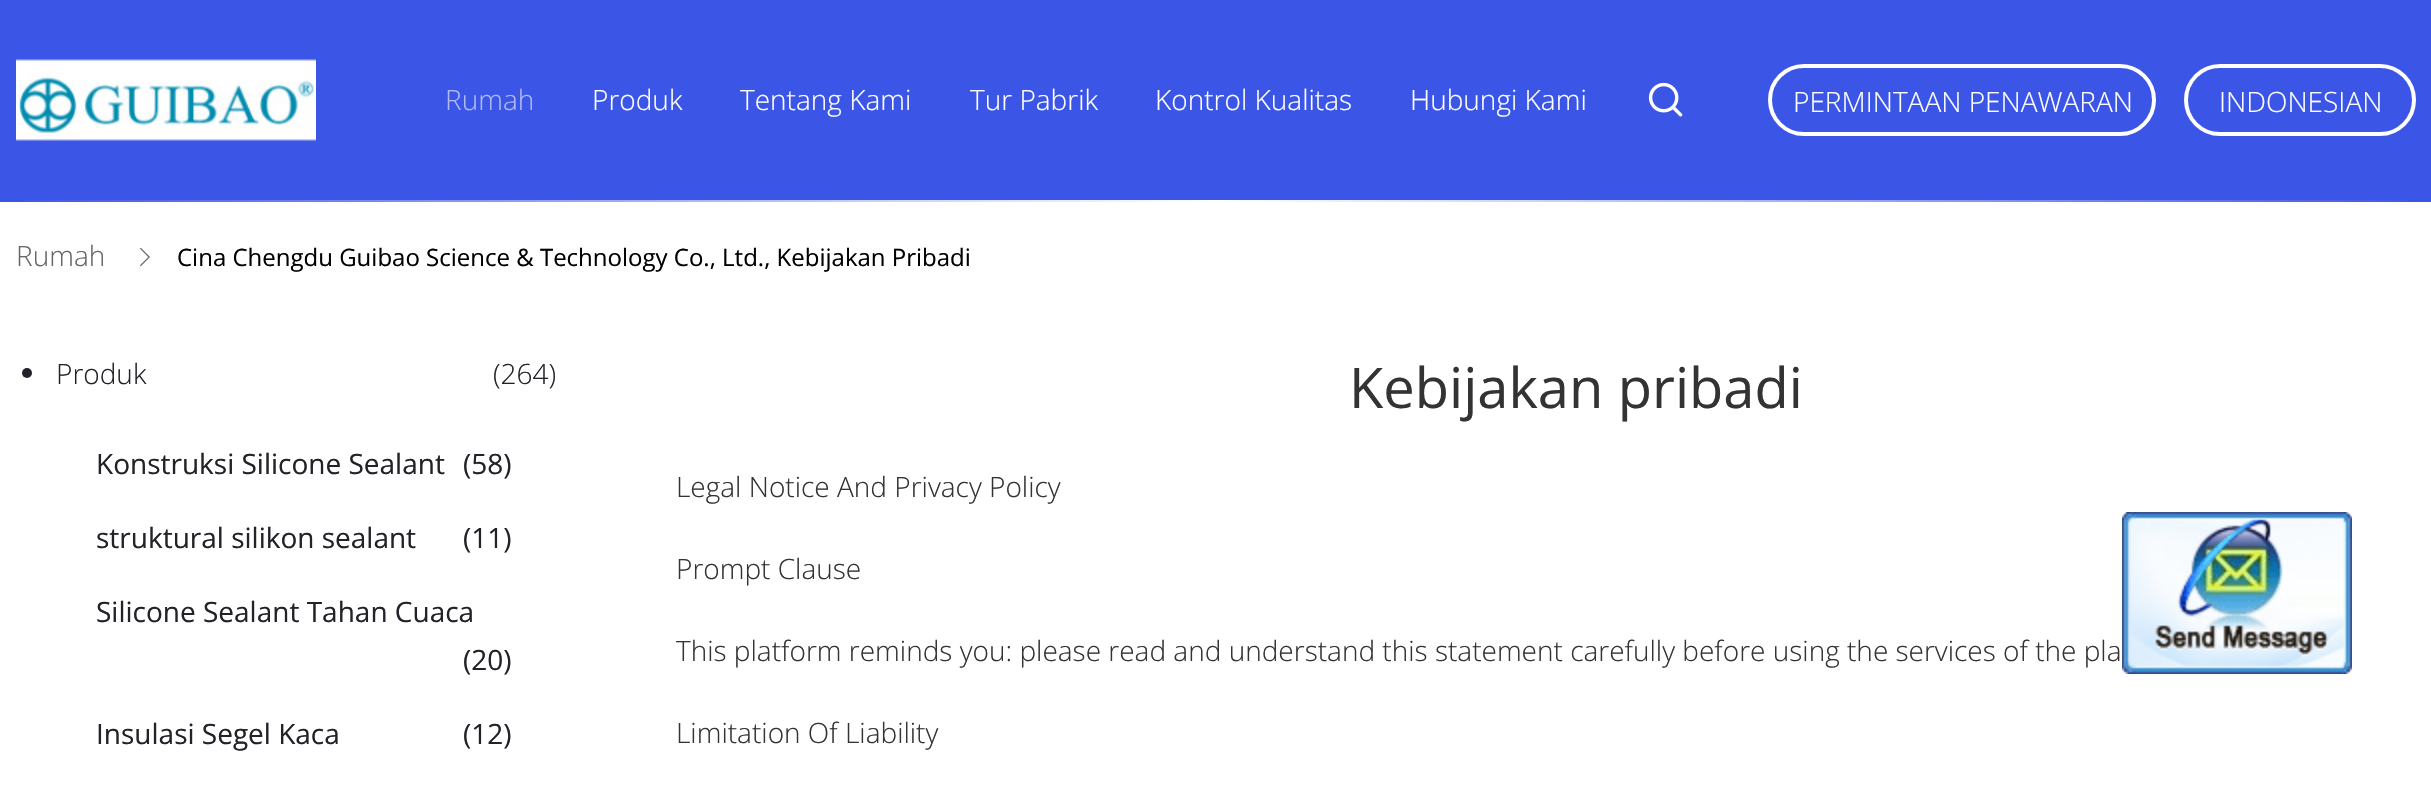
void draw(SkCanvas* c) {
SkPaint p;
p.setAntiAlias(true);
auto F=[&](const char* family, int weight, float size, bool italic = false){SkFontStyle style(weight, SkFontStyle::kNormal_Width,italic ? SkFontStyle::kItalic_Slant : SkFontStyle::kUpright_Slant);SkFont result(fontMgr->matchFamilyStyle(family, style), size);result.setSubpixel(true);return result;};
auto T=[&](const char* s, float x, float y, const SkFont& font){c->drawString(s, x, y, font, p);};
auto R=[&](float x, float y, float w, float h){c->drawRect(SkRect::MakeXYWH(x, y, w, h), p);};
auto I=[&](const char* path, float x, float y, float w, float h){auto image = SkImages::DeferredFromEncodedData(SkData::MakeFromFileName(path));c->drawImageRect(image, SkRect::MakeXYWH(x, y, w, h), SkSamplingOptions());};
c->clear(0xffffffff);
p.setColor(0xff3b55e6);
R(0,0,2431,202);
I("1.png",24,200,2384,2);
I("2.png",16,59,300,82);
auto f1 = F("Open Sans",300,28);
p.setColor(0xffb1bbf5);
T("Rumah",445,110,f1);
p.setColor(0xffffffff);
T("Produk",592,110,f1);
T("Tentang Kami",740,110,f1);
T("Tur Pabrik",970,110,f1);
T("Kontrol Kualitas",1155,110,f1);
T("Hubungi Kami",1410,110,f1);
I("3.png",1648,82,35,35);
p.setStroke(true);
p.setStrokeWidth(4);
c->drawRoundRect(SkRect::MakeXYWH(1770,66,384,68),34,34,p);
p.setStroke(false);
T("PERMINTAAN PENAWARAN",1793,112,f1);
p.setStroke(true);
c->drawRoundRect(SkRect::MakeXYWH(2186,66,228,68),34,34,p);
p.setStroke(false);
T("INDONESIAN",2219,112,f1);
p.setColor(0xff666666);
T("Rumah",16,266,f1);
I("4.png",140,247,10,20);
auto f2 = F("Open Sans",400,24);
p.setColor(0xff000000);
T("Cina Chengdu Guibao Science & Technology Co., Ltd., Kebijakan Pribadi",177,266,f2);
p.setColor(0xff222328);
c->drawCircle(27,373,5,p);
T("Produk",56,384,f1);
T("(264)",493,384,f1);
auto f3 = F("Open Sans",400,28);
T("Konstruksi Silicone Sealant",96,474,f3);
T("(58)",463,474,f3);
T("struktural silikon sealant",96,548,f3);
T("(11)",463,548,f3);
T("Silicone Sealant Tahan Cuaca",96,622,f3);
T("(20)",463,670,f3);
T("Insulasi Segel Kaca",96,744,f3);
T("(12)",463,744,f3);
auto f4 = F("Open Sans",400,56);
p.setColor(0xff333333);
T("Kebijakan pribadi",1349,408,f4);
T("Legal Notice And Privacy Policy",676,497,f1);
T("Prompt Clause",676,579,f1);
T("This platform reminds you: please read and understand this statement carefully before using the services of the pla",676,661,f1);
T("Limitation Of Liability",676,743,f1);
I("5.png",2122,512,230,162);
}
